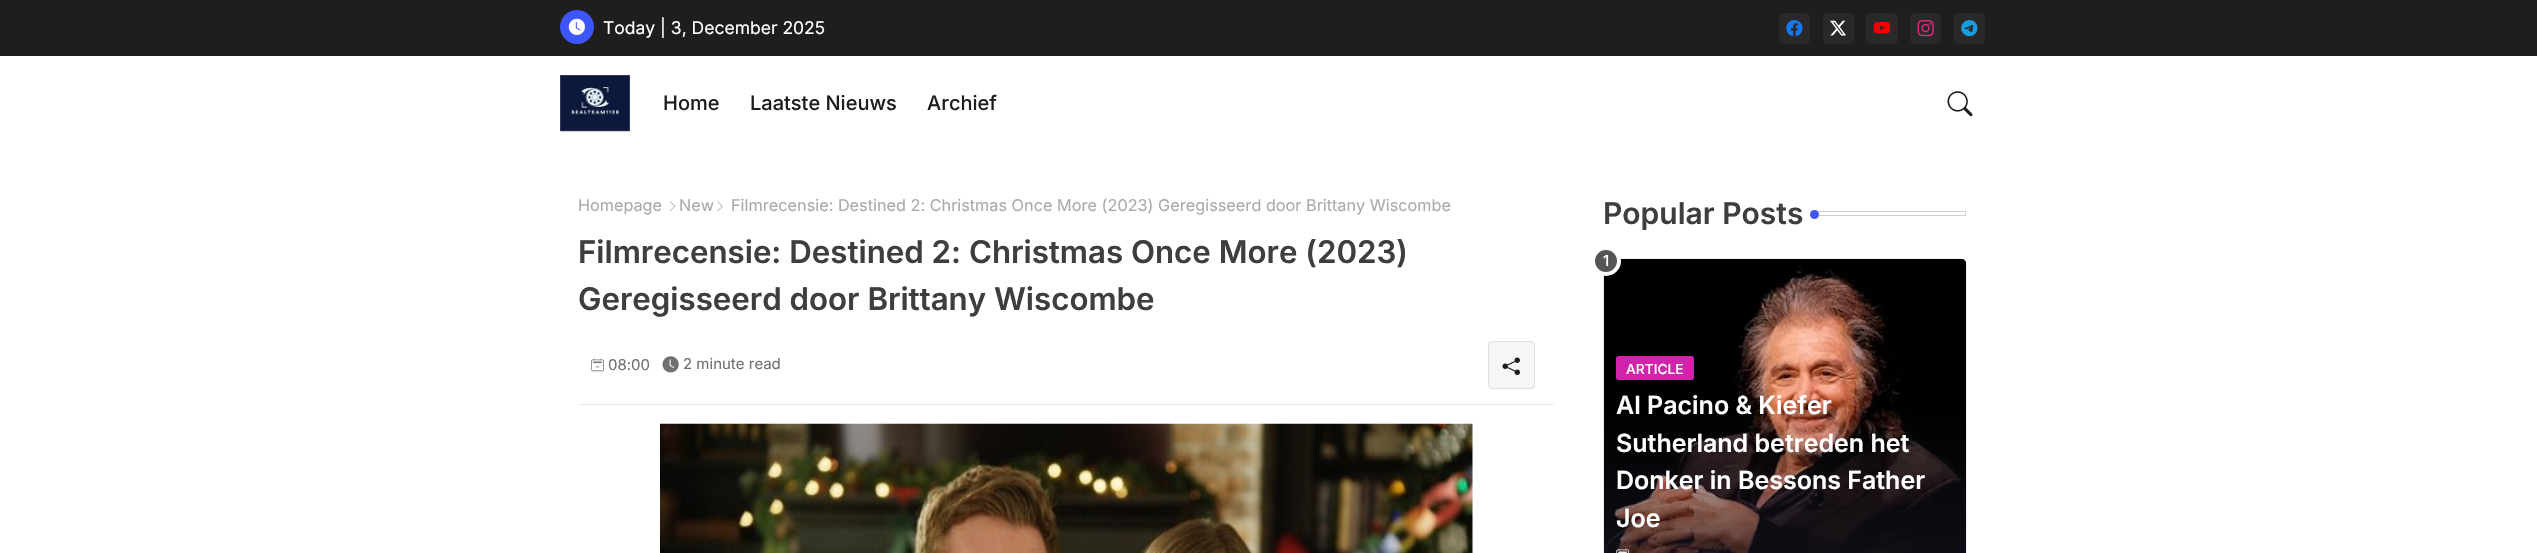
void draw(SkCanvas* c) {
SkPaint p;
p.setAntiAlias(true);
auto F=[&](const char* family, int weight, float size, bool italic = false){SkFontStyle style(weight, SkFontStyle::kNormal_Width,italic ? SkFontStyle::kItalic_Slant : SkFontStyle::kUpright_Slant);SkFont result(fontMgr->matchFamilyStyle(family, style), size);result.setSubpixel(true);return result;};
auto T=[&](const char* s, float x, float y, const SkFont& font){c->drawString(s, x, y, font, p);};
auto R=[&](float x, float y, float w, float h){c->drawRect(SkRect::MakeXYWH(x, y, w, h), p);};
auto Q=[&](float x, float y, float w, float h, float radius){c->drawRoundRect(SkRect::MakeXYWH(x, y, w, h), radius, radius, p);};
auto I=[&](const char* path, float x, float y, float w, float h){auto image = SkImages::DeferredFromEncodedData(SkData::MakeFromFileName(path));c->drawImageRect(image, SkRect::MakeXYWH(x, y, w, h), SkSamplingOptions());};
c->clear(0xffffffff);
p.setColor(0xff1e1e1e);
R(0,0,2537,56);
p.setColor(0xff3e55fa);
c->drawCircle(577,27,17,p);
I("1.png",568,18,17,17);
auto f1 = F("Inter",400,17.5);
p.setColor(0xffffffff);
T("Today | 3, December 2025",603,34,f1);
p.setColor(0xff292929);
Q(1779,13,31,31,5);
I("2.png",1786,20,17,17);
Q(1823,13,31,31,5);
I("3.png",1830,20,17,16);
Q(1866,13,32,31,5);
I("4.png",1873,22,17,12);
Q(1910,13,31,31,5);
I("5.png",1917,20,17,17);
Q(1954,13,31,31,5);
I("6.png",1961,20,17,17);
I("7.png",560,75,70,57);
auto f2 = F("Inter",500,20);
p.setColor(0xff1e1e1e);
T("Home",663,110,f2);
T("Laatste Nieuws",750,110,f2);
T("Archief",927,110,f2);
I("8.png",1947,91,26,26);
auto f3 = F("Inter",400,16.25);
p.setColor(0xffaaaaaa);
T("Homepage",578,211,f3);
I("9.png",669,201,7,11);
T("New",679,211,f3);
I("10.png",717,201,6,11);
T("Filmrecensie: Destined 2: Christmas Once More (2023) Geregisseerd door Brittany Wiscombe",731,211,f3);
auto f4 = F("Inter",600,31.25);
p.setColor(0xff3e3e3e);
T("Filmrecensie: Destined 2: Christmas Once More (2023)",578,263,f4);
T("Geregisseerd door Brittany Wiscombe",578,310,f4);
p.setColor(0xffececec);
R(579,404,975,1);
I("11.png",591,358,13,14);
auto f5 = F("Inter",400,15);
p.setColor(0xff707070);
T("08:00",608,370,f5);
I("12.png",662,356,17,17);
T("2 minute read",683,369,f5);
p.setColor(0xfff6f6f6);
Q(1488,341,47,48,4);
p.setStroke(true);
p.setStrokeWidth(1);
p.setColor(0x30818181);
c->drawRoundRect(SkRect::MakeXYWH(1488.5,341.5,46,47),3.5,3.5,p);
I("13.png",1502,357,18,18);
I("14.png",660,423,813,130);
p.setColor(0xffcfcfcf);
c->drawRect(SkRect::MakeXYWH(1604.5,211.5,361,4),p);
p.setStroke(false);
p.setColor(0xffffffff);
R(1604,211,215,5);
auto f6 = F("Inter",600,30);
p.setColor(0xff3e3e3e);
T("Popular Posts",1603,224,f6);
p.setColor(0xff3e55fa);
c->drawCircle(1814.5,214.5,4.5,p);
I("15.png",1603,258,364,295);
p.setColor(0xff555555);
c->drawCircle(1606,261,13,p);
p.setStroke(true);
p.setStrokeWidth(4);
p.setColor(0xffffffff);
c->drawCircle(1606,261,13,p);
auto f7 = F("Inter",500,15);
p.setStroke(false);
T("1",1603,266,f7);
p.setColor(0xffd223ac);
Q(1616,356,78,24,2.5);
auto f8 = F("Inter",500,13.75);
p.setColor(0xffffffff);
T("ARTICLE",1626,374,f8);
auto f9 = F("Inter",600,25);
T("Al Pacino & Kiefer",1616,414,f9);
T("Sutherland betreden het",1616,452,f9);
T("Donker in Bessons Father",1616,489,f9);
T("Joe",1616,527,f9);
I("16.png",1616,548,13,5);
}
